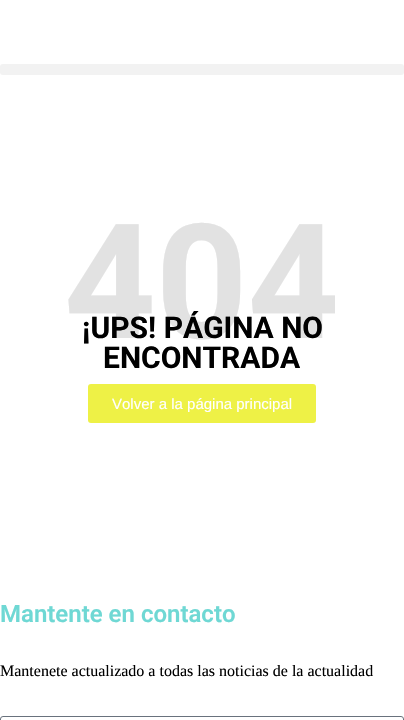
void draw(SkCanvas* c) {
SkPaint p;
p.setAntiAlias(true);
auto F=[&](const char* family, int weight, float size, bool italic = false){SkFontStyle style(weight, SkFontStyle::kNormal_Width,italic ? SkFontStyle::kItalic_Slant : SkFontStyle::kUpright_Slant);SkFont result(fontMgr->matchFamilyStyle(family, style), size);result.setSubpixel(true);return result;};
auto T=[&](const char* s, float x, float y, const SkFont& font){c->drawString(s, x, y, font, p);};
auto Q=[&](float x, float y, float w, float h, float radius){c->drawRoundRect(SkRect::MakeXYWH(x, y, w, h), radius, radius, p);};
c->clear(0xffffffff);
p.setColor(0xfff2f2f2);
Q(0,64,404,11,3);
auto f1 = F("Roboto",700,160);
p.setColor(0xffe2e2e2);
T("404",64,338,f1);
auto f2 = F("Roboto",700,30);
p.setColor(0xff000000);
T("¡UPS! PÁGINA NO",82,338,f2);
T("ENCONTRADA",103,368,f2);
p.setColor(0xffeef146);
Q(88,384,228,39,3);
auto f3 = F("Liberation Sans",400,15);
p.setColor(0xffffffff);
T("Volver a la página principal",112,409,f3);
auto f4 = F("Roboto",600,24);
p.setColor(0xff6fd8d4);
T("Mantente en contacto",0,622,f4);
auto f5 = F("Liberation Serif",400,16);
p.setColor(0xff000000);
T("Mantenete actualizado a todas las noticias de la actualidad",0,676,f5);
p.setStroke(true);
p.setStrokeWidth(1);
p.setColor(0xff69727d);
c->drawRoundRect(SkRect::MakeXYWH(.5,716.5,403,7),2.5,2.5,p);
}
